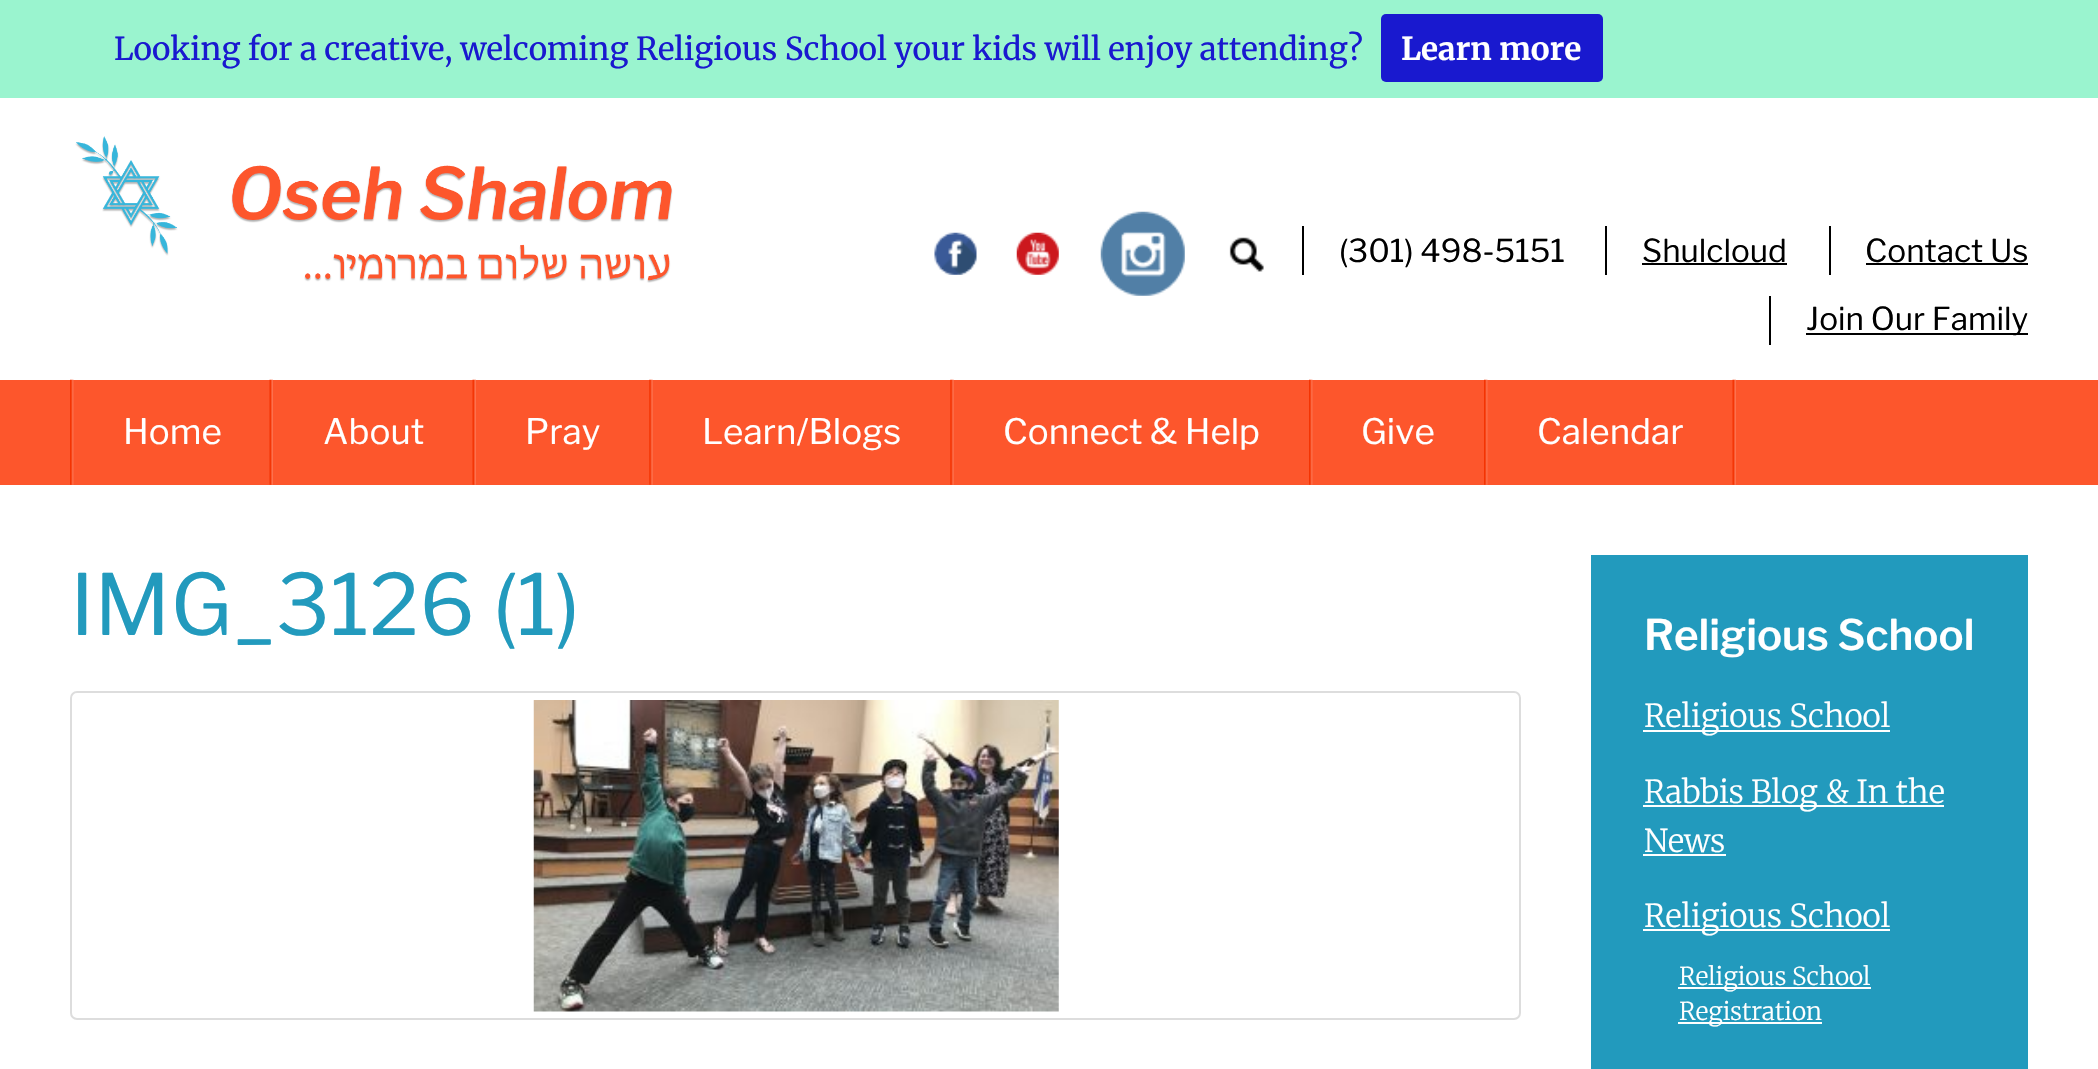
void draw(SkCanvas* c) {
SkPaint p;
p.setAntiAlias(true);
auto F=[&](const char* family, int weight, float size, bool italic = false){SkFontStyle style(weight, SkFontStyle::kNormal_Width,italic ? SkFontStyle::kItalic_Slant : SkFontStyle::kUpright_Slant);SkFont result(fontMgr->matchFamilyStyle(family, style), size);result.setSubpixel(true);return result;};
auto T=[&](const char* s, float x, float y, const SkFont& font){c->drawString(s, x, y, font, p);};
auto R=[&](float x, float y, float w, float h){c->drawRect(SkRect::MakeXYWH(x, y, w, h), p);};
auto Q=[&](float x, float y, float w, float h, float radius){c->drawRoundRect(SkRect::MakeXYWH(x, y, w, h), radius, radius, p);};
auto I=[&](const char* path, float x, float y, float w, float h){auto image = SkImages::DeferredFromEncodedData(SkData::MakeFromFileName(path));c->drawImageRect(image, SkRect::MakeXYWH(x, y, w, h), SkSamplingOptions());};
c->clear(0xffffffff);
p.setColor(0xff9af4cf);
R(0,0,2098,98);
auto f1 = F("Merriweather",400,31.5);
p.setColor(0xff1919cf);
T("Looking for a creative, welcoming Religious School your kids will enjoy attending?",114,60,f1);
Q(1381,14,222,68,5);
auto f2 = F("Merriweather",700,31.5);
p.setColor(0xffffffff);
T("Learn more",1401,60,f2);
I("1.png",75,136,598,147);
I("2.png",934,232,43,43);
I("3.png",1016,232,43,43);
I("4.png",1100,211,85,85);
I("5.png",1229,237,35,35);
p.setColor(0xff000000);
R(1302,226,2,49);
auto f3 = F("Libre Franklin",400,31.5);
T("(301) 498-5151",1339,262,f3);
R(1605,226,2,49);
T("Shulcloud",1642,262,f3);
R(1642,263,145,2);
R(1829,226,2,49);
T("Contact Us",1865,262,f3);
R(1866,263,162,2);
R(1769,296,2,49);
R(1806,333,222,2);
T("Join Our Family",1806,330,f3);
p.setColor(0xfffd562c);
R(0,380,2098,105);
I("6.png",70,379,4,106);
I("7.png",269,379,4,106);
auto f4 = F("Libre Franklin",400,35);
p.setColor(0xffffffff);
T("Home",123,444,f4);
I("7.png",472,379,4,106);
T("About",323,444,f4);
I("8.png",649,379,4,106);
T("Pray",525,444,f4);
I("8.png",950,379,4,106);
T("Learn/Blogs",702,444,f4);
I("6.png",1309,379,4,106);
T("Connect & Help",1003,444,f4);
I("6.png",1484,379,4,106);
T("Give",1361,444,f4);
I("7.png",1732,379,4,106);
T("Calendar",1537,444,f4);
auto f5 = F("Libre Franklin",400,84);
p.setColor(0xff229abd);
T("IMG_3126 (1)",70,635,f5);
p.setStroke(true);
p.setStrokeWidth(2);
p.setColor(0xffdddddd);
c->drawRoundRect(SkRect::MakeXYWH(71,692,1449,327),6,6,p);
I("9.png",533,700,526,312);
p.setStroke(false);
p.setColor(0xff229abd);
R(1591,555,437,514);
auto f6 = F("Libre Franklin",600,42);
p.setColor(0xffffffff);
T("Religious School",1644,650,f6);
R(1643,730,247,2);
auto f7 = F("Merriweather",300,31.5);
T("Religious School",1644,727,f7);
R(1643,805,301,2);
T("Rabbis Blog & In the",1644,803,f7);
T("News",1644,852,f7);
R(1643,854,83,2);
R(1643,929,247,2);
T("Religious School",1644,927,f7);
R(1678,987,193,2);
auto f8 = F("Merriweather",300,24.5);
T("Religious School",1679,985,f8);
R(1678,1022,144,2);
T("Registration",1679,1020,f8);
}
